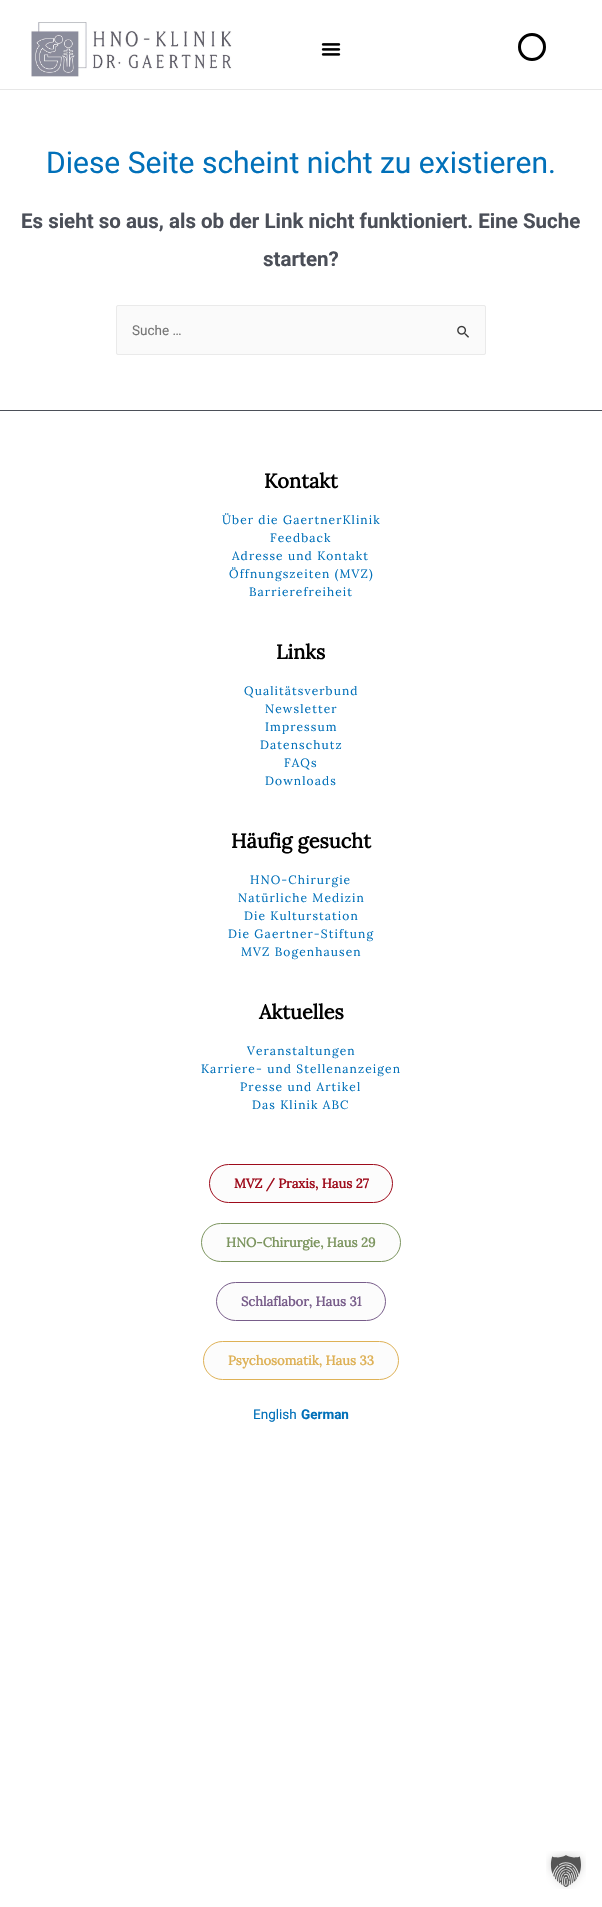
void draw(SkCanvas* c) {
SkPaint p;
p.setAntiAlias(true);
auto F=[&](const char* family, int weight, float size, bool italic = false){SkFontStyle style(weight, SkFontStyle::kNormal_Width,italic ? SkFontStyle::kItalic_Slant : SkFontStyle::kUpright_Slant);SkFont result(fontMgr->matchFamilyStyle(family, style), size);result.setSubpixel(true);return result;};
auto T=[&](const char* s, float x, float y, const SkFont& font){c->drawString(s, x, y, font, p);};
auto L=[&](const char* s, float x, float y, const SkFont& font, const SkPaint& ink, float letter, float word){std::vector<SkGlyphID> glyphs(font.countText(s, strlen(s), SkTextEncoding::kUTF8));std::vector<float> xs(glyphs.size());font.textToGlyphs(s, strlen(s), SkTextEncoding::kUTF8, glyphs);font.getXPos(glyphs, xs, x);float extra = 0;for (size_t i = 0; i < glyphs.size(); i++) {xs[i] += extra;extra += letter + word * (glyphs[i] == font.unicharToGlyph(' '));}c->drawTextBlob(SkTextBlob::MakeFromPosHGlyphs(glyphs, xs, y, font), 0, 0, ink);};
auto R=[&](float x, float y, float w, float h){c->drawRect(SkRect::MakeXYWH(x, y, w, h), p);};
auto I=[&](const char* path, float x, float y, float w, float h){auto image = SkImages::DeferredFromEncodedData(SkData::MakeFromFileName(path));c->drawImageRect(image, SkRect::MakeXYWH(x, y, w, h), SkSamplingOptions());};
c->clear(0xffffffff);
p.setColor(0xffe7e7e7);
R(0,89,602,1);
I("1.png",31,22,201,55);
I("2.png",321,43,20,13);
p.setStroke(true);
p.setStrokeWidth(3);
p.setColor(0xff000000);
c->drawCircle(532,47,12.5,p);
auto f1 = F("Roboto",400,30);
p.setStroke(false);
p.setColor(0xff0170b9);
T("Diese Seite scheint nicht zu existieren.",46,173,f1);
auto f2 = F("Roboto",700,20.5);
p.setColor(0xff4b4f58);
T("Es sieht so aus, als ob der Link nicht funktioniert. Eine Suche",21,228,f2);
T("starten?",263,266,f2);
p.setColor(0xfffafafa);
c->drawRoundRect(SkRect::MakeXYWH(116.5,305.5,369,49),1.5,1.5,p);
p.setStroke(true);
p.setStrokeWidth(1);
p.setColor(0xffeaeaea);
c->drawRoundRect(SkRect::MakeXYWH(116.5,305.5,369,49),1.5,1.5,p);
auto f3 = F("Roboto",400,13.5);
p.setStroke(false);
p.setColor(0xff757575);
T("Suche …",132,335,f3);
I("3.png",457,325,12,13);
p.setColor(0xff4b4f58);
R(0,410,602,1);
auto f4 = F("Lora",700,20);
p.setColor(0xff000000);
T("Kontakt",264,488,f4);
auto f5 = F("Lora",400,12);
p.setColor(0xff0170b9);
L("Über die GaertnerKlinik",222,524,f5,p,1.1,0);
L("Feedback",270,542,f5,p,1.1,0);
L("Adresse und Kontakt",232,560,f5,p,1.1,0);
L("Öffnungszeiten (MVZ)",229,578,f5,p,1.1,0);
L("Barrierefreiheit",249,596,f5,p,1.1,0);
p.setColor(0xff000000);
T("Links",276,659,f4);
p.setColor(0xff0170b9);
L("Qualitätsverbund",244,695,f5,p,1.1,0);
L("Newsletter",265,713,f5,p,1.1,0);
L("Impressum",265,731,f5,p,1.1,0);
L("Datenschutz",260,749,f5,p,1.1,0);
L("FAQs",284,767,f5,p,1.1,0);
L("Downloads",265,785,f5,p,1.1,0);
p.setColor(0xff000000);
T("Häufig gesucht",231,848,f4);
p.setColor(0xff0170b9);
L("HNO-Chirurgie",250,884,f5,p,1.1,0);
L("Natürliche Medizin",238,902,f5,p,1.1,0);
L("Die Kulturstation",244,920,f5,p,1.1,0);
L("Die Gaertner-Stiftung",228,938,f5,p,1.1,0);
L("MVZ Bogenhausen",241,956,f5,p,1.1,0);
p.setColor(0xff000000);
T("Aktuelles",259,1019,f4);
p.setColor(0xff0170b9);
L("Veranstaltungen",247,1055,f5,p,1.1,0);
L("Karriere- und Stellenanzeigen",201,1073,f5,p,1.1,0);
L("Presse und Artikel",240,1091,f5,p,1.1,0);
L("Das Klinik ABC",252,1109,f5,p,1.1,0);
p.setColor(0xfffcfcfc);
c->drawRoundRect(SkRect::MakeXYWH(209.5,1164.5,183,38),19,19,p);
p.setStroke(true);
p.setColor(0xff9e0b1b);
c->drawRoundRect(SkRect::MakeXYWH(209.5,1164.5,183,38),19,19,p);
auto f6 = F("Lora",700,13);
p.setStroke(false);
T("MVZ / Praxis, Haus 27",234,1188,f6);
p.setColor(0xfffcfcfc);
c->drawRoundRect(SkRect::MakeXYWH(201.5,1223.5,199,38),19,19,p);
p.setStroke(true);
p.setColor(0xff7c955f);
c->drawRoundRect(SkRect::MakeXYWH(201.5,1223.5,199,38),19,19,p);
p.setStroke(false);
T("HNO-Chirurgie, Haus 29",226,1247,f6);
p.setColor(0xfffcfcfc);
c->drawRoundRect(SkRect::MakeXYWH(216.5,1282.5,169,38),19,19,p);
p.setStroke(true);
p.setColor(0xff785d8a);
c->drawRoundRect(SkRect::MakeXYWH(216.5,1282.5,169,38),19,19,p);
p.setStroke(false);
T("Schlaflabor, Haus 31",241,1306,f6);
p.setColor(0xfffcfcfc);
c->drawRoundRect(SkRect::MakeXYWH(203.5,1341.5,195,38),19,19,p);
p.setStroke(true);
p.setColor(0xffdeb156);
c->drawRoundRect(SkRect::MakeXYWH(203.5,1341.5,195,38),19,19,p);
p.setStroke(false);
T("Psychosomatik, Haus 33",228,1365,f6);
p.setColor(0xff0170b9);
T("English",253,1419,f3);
auto f7 = F("Roboto",700,13.5);
T("German",301,1419,f7);
I("4.png",546,1851,40,38);
}
